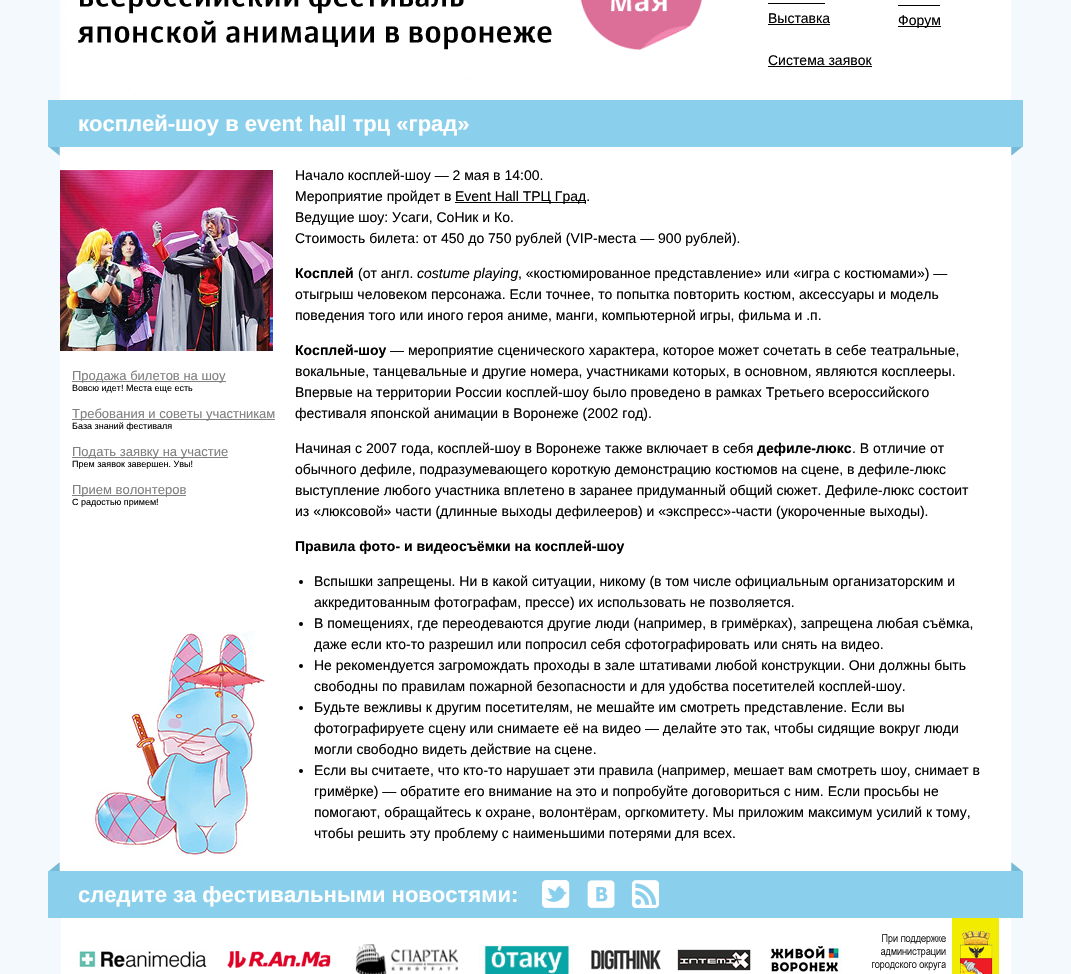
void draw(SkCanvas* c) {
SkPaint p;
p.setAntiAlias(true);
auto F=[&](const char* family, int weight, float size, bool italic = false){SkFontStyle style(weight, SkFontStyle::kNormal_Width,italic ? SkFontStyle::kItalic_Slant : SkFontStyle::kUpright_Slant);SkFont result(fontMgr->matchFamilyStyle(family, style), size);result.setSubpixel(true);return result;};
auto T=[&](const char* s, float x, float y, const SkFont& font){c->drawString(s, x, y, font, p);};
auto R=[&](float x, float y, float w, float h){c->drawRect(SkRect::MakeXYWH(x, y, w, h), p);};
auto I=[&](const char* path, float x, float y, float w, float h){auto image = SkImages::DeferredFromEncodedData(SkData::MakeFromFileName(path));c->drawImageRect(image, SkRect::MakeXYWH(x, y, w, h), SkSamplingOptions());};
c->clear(0xffffffff);
p.setColor(0xfff4f9fd);
R(0,0,48,974);
I("1.png",48,0,504,100);
I("2.png",580,0,122,50);
auto f1 = F("Liberation Sans",400,14);
p.setColor(0xff000000);
T("Выставка",768,23,f1);
R(768,3,57,1);
R(768,24,62,1);
T("Система заявок",768,65,f1);
R(768,66,104,1);
R(898,26,43,1);
T("Форум",898,25,f1);
R(898,5,42,1);
p.setColor(0xfff4f9fd);
R(1011,0,60,100);
p.setColor(0xff8acfec);
R(48,100,975,47);
p.setColor(0xfff4f9fd);
R(1023,100,48,47);
auto f2 = F("Liberation Sans",700,22);
p.setColor(0xffffffff);
T("косплей-шоу в event hall трц «град»",78,131,f2);
p.setColor(0xfff4f9fd);
R(48,147,12,724);
I("3.png",49,147,11,9);
R(1011,147,60,13);
I("4.png",1011,147,11,9);
I("5.png",92,631,175,224);
I("6.png",60,170,213,181);
p.setColor(0xff808080);
R(72,381,154,1);
auto f3 = F("Liberation Sans",400,13);
T("Продажа билетов на шоу",72,380,f3);
auto f4 = F("Liberation Sans",400,9);
p.setColor(0xff000000);
T("Вовсю идет! Места еще есть",72,391,f4);
p.setColor(0xff808080);
R(72,419,203,1);
T("Требования и советы участникам",72,418,f3);
p.setColor(0xff000000);
T("База знаний фестиваля",72,429,f4);
p.setColor(0xff808080);
R(72,457,156,1);
T("Подать заявку на участие",72,456,f3);
p.setColor(0xff000000);
T("Прем заявок завершен. Увы!",72,467,f4);
p.setColor(0xff808080);
R(72,495,114,1);
T("Прием волонтеров",72,494,f3);
p.setColor(0xff000000);
T("С радостью примем!",72,505,f4);
T("Начало косплей-шоу — 2 мая в 14:00.",295,180,f1);
T("Мероприятие пройдет в",295,201,f1);
R(455,202,131,1);
T("Event Hall ТРЦ Град.",455,201,f1);
T("Ведущие шоу: Усаги, СоНик и Ко.",295,222,f1);
T("Стоимость билета: от 450 до 750 рублей (VIP-места — 900 рублей).",295,243,f1);
auto f5 = F("Liberation Sans",700,14);
T("Косплей",295,278,f5);
T("(от англ.",358,278,f1);
auto f6 = F("Liberation Sans",400,14,true);
T("costume playing",417,278,f6);
T(", «костюмированное представление» или «игра с костюмами») —",518,278,f1);
T("отыгрыш человеком персонажа. Если точнее, то попытка повторить костюм, аксессуары и модель",295,299,f1);
T("поведения того или иного героя аниме, манги, компьютерной игры, фильма и .п.",295,320,f1);
T("Косплей-шоу",295,355,f5);
T("— мероприятие сценического характера, которое может сочетать в себе театральные,",390,355,f1);
T("вокальные, танцевальные и другие номера, участниками которых, в основном, являются косплееры.",295,376,f1);
T("Впервые на территории России косплей-шоу было проведено в рамках Третьего всероссийского",295,397,f1);
T("фестиваля японской анимации в Воронеже (2002 год).",295,418,f1);
T("Начиная с 2007 года, косплей-шоу в Воронеже также включает в себя",295,453,f1);
T("дефиле-люкс",757,453,f5);
T(". В отличие от",852,453,f1);
T("обычного дефиле, подразумевающего короткую демонстрацию костюмов на сцене, в дефиле-люкс",295,474,f1);
T("выступление любого участника вплетено в заранее придуманный общий сюжет. Дефиле-люкс состоит",295,495,f1);
T("из «люксовой» части (длинные выходы дефилееров) и «экспресс»-части (укороченные выходы).",295,516,f1);
T("Правила фото- и видеосъёмки на косплей-шоу",295,551,f5);
c->drawCircle(301,582,2,p);
T("Вспышки запрещены. Ни в какой ситуации, никому (в том числе официальным организаторским и",314,586,f1);
T("аккредитованным фотографам, прессе) их использовать не позволяется.",314,607,f1);
c->drawCircle(301,624,2,p);
T("В помещениях, где переодеваются другие люди (например, в гримёрках), запрещена любая съёмка,",314,628,f1);
T("даже если кто-то разрешил или попросил себя сфотографировать или снять на видео.",314,649,f1);
c->drawCircle(301,666,2,p);
T("Не рекомендуется загромождать проходы в зале штативами любой конструкции. Они должны быть",314,670,f1);
T("свободны по правилам пожарной безопасности и для удобства посетителей косплей-шоу.",314,691,f1);
c->drawCircle(301,708,2,p);
T("Будьте вежливы к другим посетителям, не мешайте им смотреть представление. Если вы",314,712,f1);
T("фотографируете сцену или снимаете её на видео — делайте это так, чтобы сидящие вокруг люди",314,733,f1);
T("могли свободно видеть действие на сцене.",314,754,f1);
c->drawCircle(301,771,2,p);
T("Если вы считаете, что кто-то нарушает эти правила (например, мешает вам смотреть шоу, снимает в",314,775,f1);
T("гримёрке) — обратите его внимание на это и попробуйте договориться с ним. Если просьбы не",314,796,f1);
T("помогают, обращайтесь к охране, волонтёрам, оргкомитету. Мы приложим максимум усилий к тому,",314,817,f1);
T("чтобы решить эту проблему с наименьшими потерями для всех.",314,838,f1);
p.setColor(0xfff4f9fd);
R(1011,160,60,698);
I("7.png",49,862,11,9);
R(1011,858,60,13);
I("8.png",1011,862,11,9);
p.setColor(0xff8acfec);
R(48,871,975,47);
p.setColor(0xfff4f9fd);
R(1023,871,48,47);
p.setColor(0xffffffff);
T("следите за фестивальными новостями:",78,902,f2);
I("9.png",542,880,28,28);
I("10.png",587,880,28,28);
I("11.png",631,880,28,28);
p.setColor(0xfff4f9fd);
R(48,918,12,56);
I("12.png",60,918,147,56);
I("13.png",227,950,104,18);
I("14.png",355,944,103,30);
I("15.png",479,945,94,29);
I("16.png",591,950,70,20);
I("17.png",677,949,74,22);
I("18.png",769,943,73,30);
I("19.png",872,918,127,56);
R(1011,918,60,56);
}
